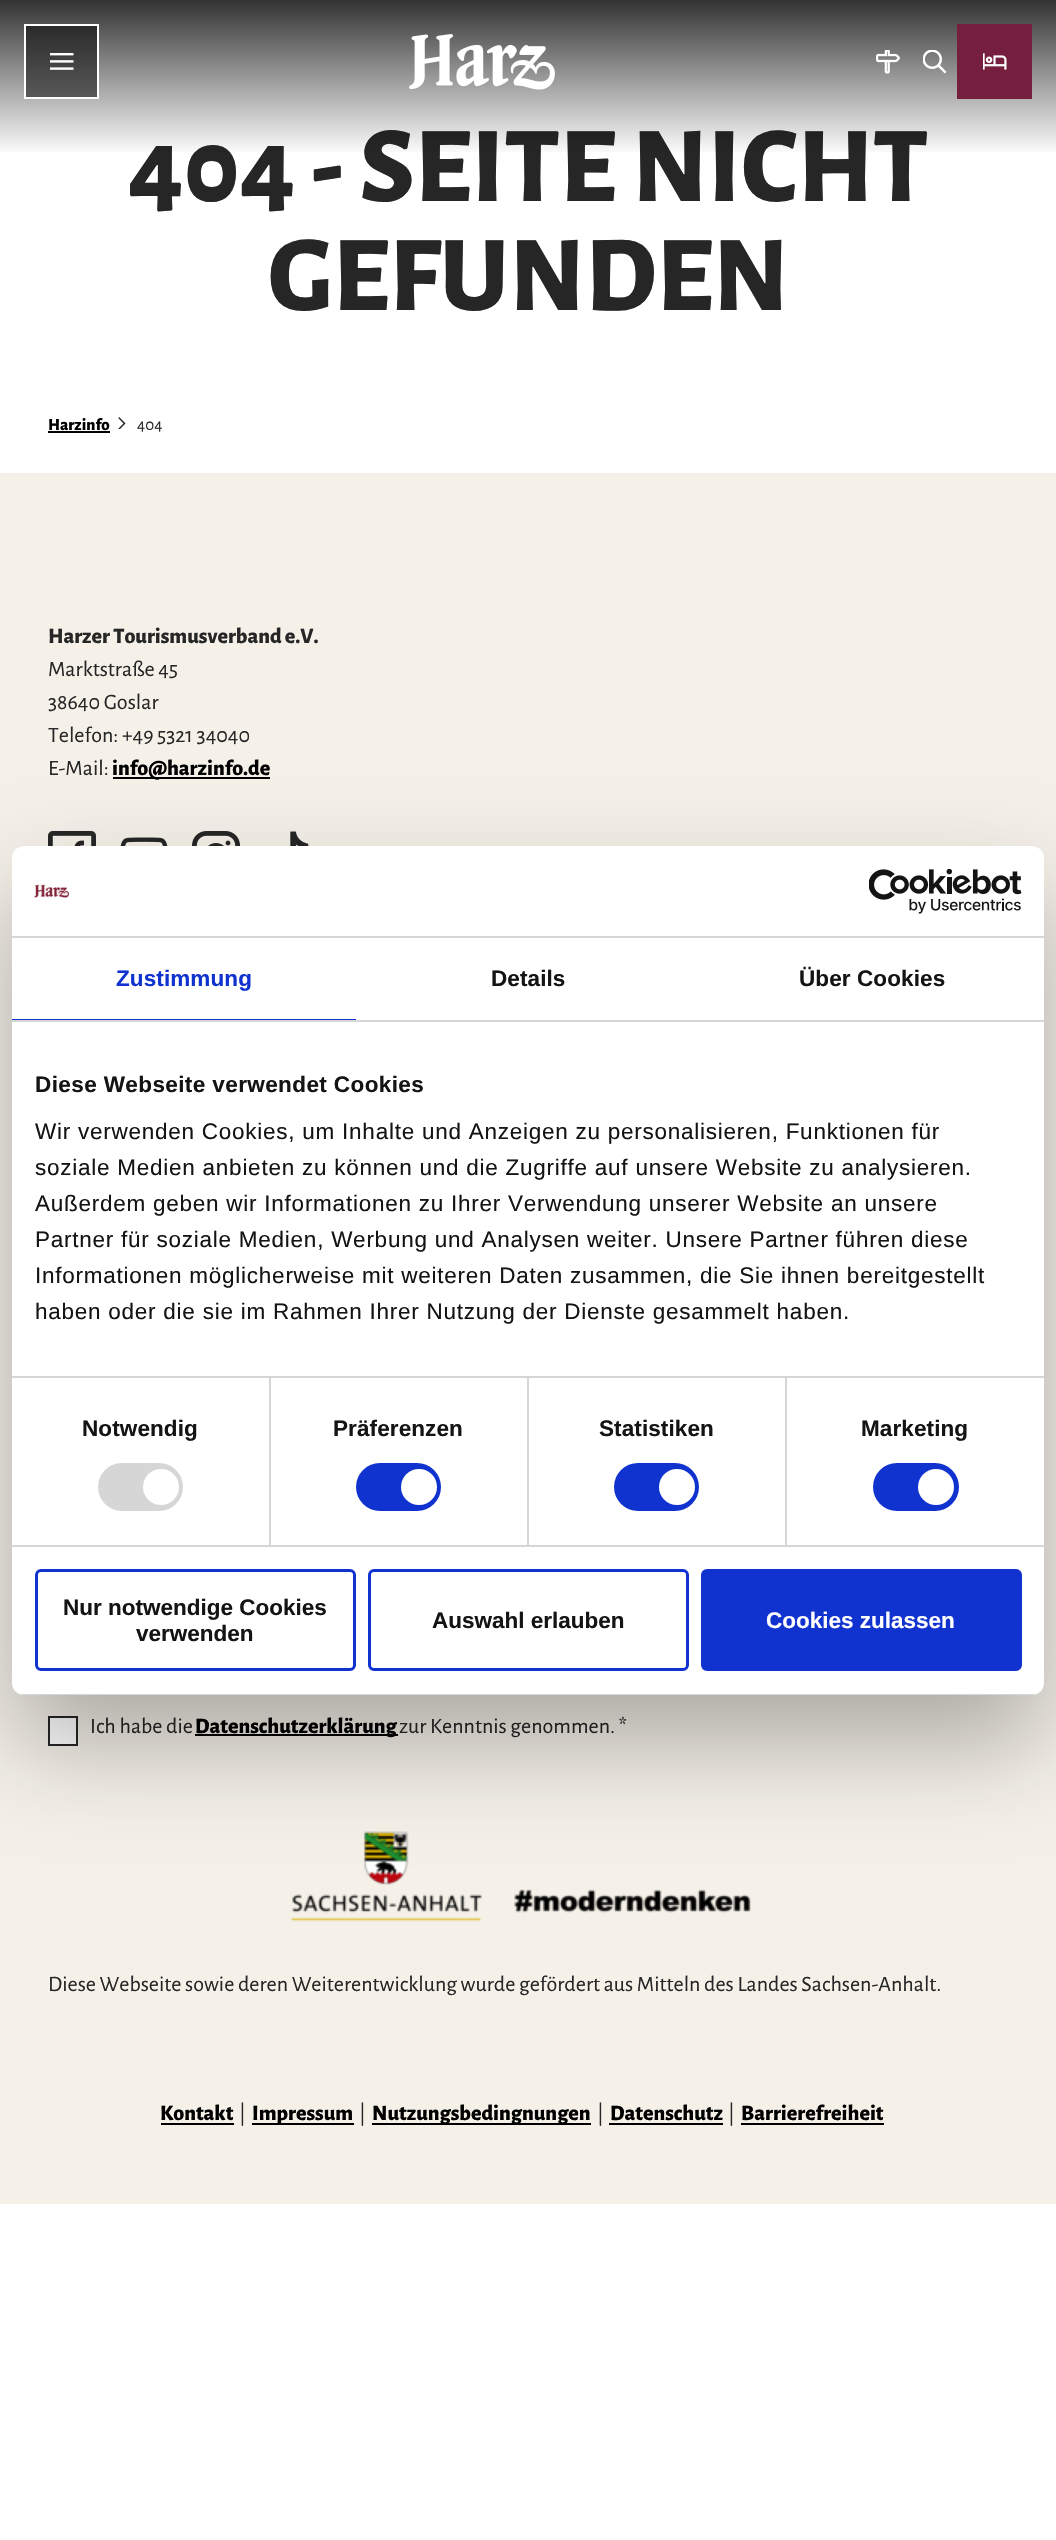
void draw(SkCanvas* c) {
SkPaint p;
p.setAntiAlias(true);
auto F=[&](const char* family, int weight, float size, bool italic = false){SkFontStyle style(weight, SkFontStyle::kNormal_Width,italic ? SkFontStyle::kItalic_Slant : SkFontStyle::kUpright_Slant);SkFont result(fontMgr->matchFamilyStyle(family, style), size);result.setSubpixel(true);return result;};
auto T=[&](const char* s, float x, float y, const SkFont& font){c->drawString(s, x, y, font, p);};
auto L=[&](const char* s, float x, float y, const SkFont& font, const SkPaint& ink, float letter, float word){std::vector<SkGlyphID> glyphs(font.countText(s, strlen(s), SkTextEncoding::kUTF8));std::vector<float> xs(glyphs.size());font.textToGlyphs(s, strlen(s), SkTextEncoding::kUTF8, glyphs);font.getXPos(glyphs, xs, x);float extra = 0;for (size_t i = 0; i < glyphs.size(); i++) {xs[i] += extra;extra += letter + word * (glyphs[i] == font.unicharToGlyph(' '));}c->drawTextBlob(SkTextBlob::MakeFromPosHGlyphs(glyphs, xs, y, font), 0, 0, ink);};
auto R=[&](float x, float y, float w, float h){c->drawRect(SkRect::MakeXYWH(x, y, w, h), p);};
auto Q=[&](float x, float y, float w, float h, float radius){c->drawRoundRect(SkRect::MakeXYWH(x, y, w, h), radius, radius, p);};
auto I=[&](const char* path, float x, float y, float w, float h){auto image = SkImages::DeferredFromEncodedData(SkData::MakeFromFileName(path));c->drawImageRect(image, SkRect::MakeXYWH(x, y, w, h), SkSamplingOptions());};
auto P=[&](const char* data, bool evenOdd = false){SkPath result = *SkParsePath::FromSVGString(data);if (evenOdd) result.setFillType(SkPathFillType::kEvenOdd);return result;};
c->clear(0xffffffff);
auto f1 = F("Alegreya Sans",800,108.25);
p.setColor(0xff262626);
T("404 - SEITE NICHT",128,201,f1);
{
const SkColor colors[] = {0xcc000000,0x00000000};
const float stops[] = {0,1};
const SkPoint ends[] = {{528,0}, {528,156}};
p.setShader(SkGradientShader::MakeLinear(ends, colors, stops, 2, SkTileMode::kClamp));
p.setAlpha(255);
}
R(0,0,1056,152);
p.setShader(nullptr);
p.setColor(0x80000000);
c->drawRect(SkRect::MakeXYWH(25,25,73,73),p);
p.setStroke(true);
p.setStrokeWidth(2);
p.setColor(0xffffffff);
c->drawRect(SkRect::MakeXYWH(25,25,73,73),p);
I("1.png",50,53,24,17);
I("2.png",409,34,146,56);
I("3.png",876,50,24,24);
I("4.png",923,50,24,24);
p.setStroke(false);
p.setColor(0xff751e3e);
R(957,24,75,75);
I("5.png",983,53,24,17);
p.setColor(0xff262626);
T("GEFUNDEN",268,310,f1);
auto f2 = F("Alegreya Sans",800,17);
p.setColor(0xff000000);
T("Harzinfo",48,430,f2);
R(48,431,62,2);
I("6.png",118,417,8,12);
auto f3 = F("Alegreya Sans",400,17);
p.setColor(0xff262626);
T("404",137,430,f3);
p.setColor(0xfff5f1e9);
R(0,473,1056,1731);
auto f4 = F("Alegreya Sans",800,22);
p.setColor(0xff262626);
T("Harzer Tourismusverband e.V.",48,643,f4);
auto f5 = F("Alegreya Sans",400,22);
T("Marktstraße 45",48,676,f5);
T("38640 Goslar",48,709,f5);
T("Telefon: +49 5321 34040",48,742,f5);
T("E-Mail:",48,775,f5);
p.setColor(0xff000000);
R(113,777,157,2);
T("info@harzinfo.de",112,775,f4);
I("7.png",48,831,48,15);
I("8.png",120,837,48,9);
I("9.png",192,831,48,15);
I("10.png",290,831,19,15);
p.setColor(0xffffffff);
c->drawRect(SkRect::MakeXYWH(49,1717,28,28),p);
p.setStroke(true);
p.setColor(0xff262626);
c->drawRect(SkRect::MakeXYWH(49,1717,28,28),p);
p.setStroke(false);
T("Ich habe die",90,1733,f5);
p.setColor(0xff000000);
R(195,1734,203,2);
T("Datenschutzerklärung",195,1733,f4);
p.setColor(0xff262626);
T("zur Kenntnis genommen. *",399,1733,f5);
I("11.png",290,1831,461,91);
T("Diese Webseite sowie deren Weiterentwicklung wurde gefördert aus Mitteln des Landes Sachsen-Anhalt.",48,1991,f5);
p.setColor(0xff000000);
T("Kontakt",160,2120,f4);
R(161,2123,73,2);
p.setColor(0xff262626);
T("|",239,2120,f5);
p.setColor(0xff000000);
R(252,2123,102,2);
T("Impressum",252,2120,f4);
p.setColor(0xff262626);
T("|",359,2120,f5);
p.setColor(0xff000000);
R(372,2123,219,2);
T("Nutzungsbedingnungen",372,2120,f4);
p.setColor(0xff262626);
T("|",597,2120,f5);
p.setColor(0xff000000);
T("Datenschutz",610,2120,f4);
R(609,2123,114,2);
p.setColor(0xff262626);
T("|",728,2120,f5);
p.setColor(0xff000000);
T("Barrierefreiheit",741,2120,f4);
R(741,2123,143,2);
p.setColor(0x4d000000);
p.setMaskFilter(SkMaskFilter::MakeBlur(kNormal_SkBlurStyle, 51));
c->drawRoundRect(SkRect::MakeXYWH(12,894,1032,849),12,12,p);
p.setMaskFilter(nullptr);
p.setColor(0xffffffff);
Q(12,846,1032,849,12);
p.setColor(0xffd6d6d6);
R(12,936,1032,2);
I("12.png",34,884,35,14);
I("13.png",869,869,153,45);
R(12,1020,1032,2);
p.setColor(0xff1032cf);
R(12,1019,344,1);
auto f6 = F("Liberation Sans",700,22.5);
L("Zustimmung",116,986,f6,p,.1,0);
p.setColor(0xff141414);
L("Details",491,986,f6,p,.1,0);
L("Über Cookies",799,986,f6,p,.1,0);
p.setColor(0xffd6d6d6);
R(269,1377,2,168);
R(527,1377,2,168);
R(785,1377,2,168);
R(12,1376,1032,2);
p.setColor(0xff141414);
L("Diese Webseite verwendet Cookies",35,1092,f6,p,.4,0);
auto f7 = F("Liberation Sans",400,22.5);
L("Wir verwenden Cookies, um Inhalte und Anzeigen zu personalisieren, Funktionen für",35,1139,f7,p,.75,0);
L("soziale Medien anbieten zu können und die Zugriffe auf unsere Website zu analysieren.",35,1175,f7,p,.75,0);
L("Außerdem geben wir Informationen zu Ihrer Verwendung unserer Website an unsere",35,1211,f7,p,.75,0);
L("Partner für soziale Medien, Werbung und Analysen weiter. Unsere Partner führen diese",35,1247,f7,p,.75,0);
L("Informationen möglicherweise mit weiteren Daten zusammen, die Sie ihnen bereitgestellt",35,1283,f7,p,.75,0);
L("haben oder die sie im Rahmen Ihrer Nutzung der Dienste gesammelt haben.",35,1319,f7,p,.75,0);
p.setColor(0xffd6d6d6);
R(12,1545,1032,2);
p.setColor(0xff141414);
L("Notwendig",82,1436,f6,p,.1,0);
p.setColor(0xffd6d6d6);
Q(98,1463,85,48,24);
p.setColor(0xffffffff);
c->drawCircle(161,1487,18,p);
p.setColor(0xff141414);
L("Präferenzen",333,1436,f6,p,.1,0);
p.setColor(0xff1032cf);
Q(356,1463,85,48,24);
p.setColor(0xffffffff);
c->drawCircle(419,1487,18,p);
p.setColor(0xff141414);
L("Statistiken",599,1436,f6,p,.1,0);
p.setColor(0xff1032cf);
Q(614,1463,85,48,24);
p.setColor(0xffffffff);
c->drawCircle(677,1487,18,p);
p.setColor(0xff141414);
L("Marketing",861,1436,f6,p,.1,0);
p.setColor(0xff1032cf);
Q(873,1463,86,48,24);
p.setColor(0xffffffff);
c->drawCircle(936,1487,18,p);
c->save();
c->clipPath(P("M24 846h1008c6.5 0 12 5.5 12 12v825c0 6.5-5.5 12-12 12h-1008c-6.5 0-12-5.5-12-12v-825c0-6.5 5.5-12 12-12z"),true);
p.setColor(0xffd6d6d6);
R(12,1694,1032,1);
c->restore();
p.setStroke(true);
p.setStrokeWidth(3);
p.setColor(0xff1032cf);
c->drawRoundRect(SkRect::MakeXYWH(36.5,1570.5,318,99),4.5,4.5,p);
p.setStroke(false);
p.setColor(0xff141414);
T("Nur notwendige Cookies",63,1615,f6);
T("verwenden",136,1641,f6);
p.setStroke(true);
p.setColor(0xff1032cf);
c->drawRoundRect(SkRect::MakeXYWH(369.5,1570.5,318,99),4.5,4.5,p);
p.setStroke(false);
p.setColor(0xff141414);
T("Auswahl erlauben",432,1628,f6);
p.setColor(0xff1032cf);
c->drawRoundRect(SkRect::MakeXYWH(702.5,1570.5,318,99),4.5,4.5,p);
p.setStroke(true);
c->drawRoundRect(SkRect::MakeXYWH(702.5,1570.5,318,99),4.5,4.5,p);
p.setStroke(false);
p.setColor(0xffffffff);
T("Cookies zulassen",766,1628,f6);
}
